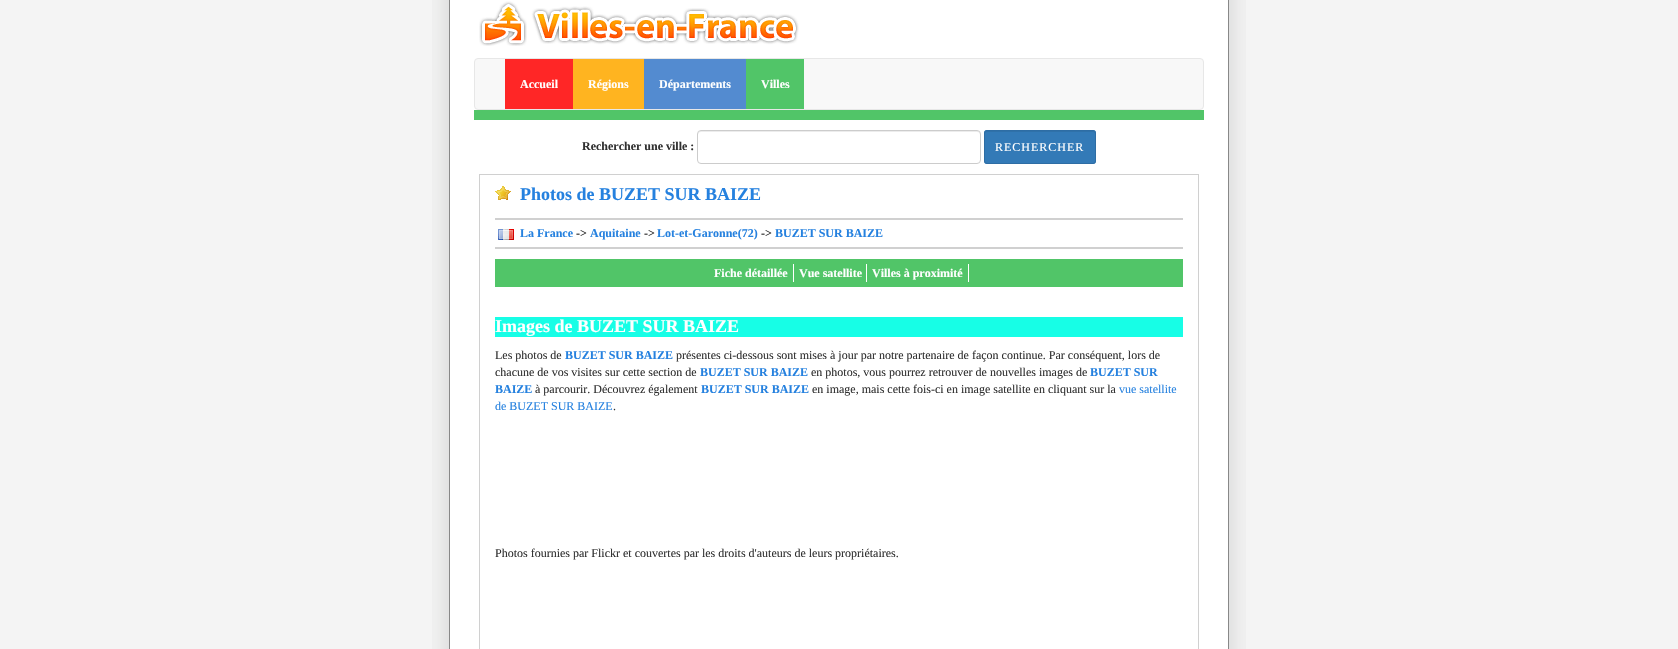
void draw(SkCanvas* c) {
SkPaint p;
p.setAntiAlias(true);
auto F=[&](const char* family, int weight, float size, bool italic = false){SkFontStyle style(weight, SkFontStyle::kNormal_Width,italic ? SkFontStyle::kItalic_Slant : SkFontStyle::kUpright_Slant);SkFont result(fontMgr->matchFamilyStyle(family, style), size);result.setSubpixel(true);return result;};
auto T=[&](const char* s, float x, float y, const SkFont& font){c->drawString(s, x, y, font, p);};
auto L=[&](const char* s, float x, float y, const SkFont& font, const SkPaint& ink, float letter, float word){std::vector<SkGlyphID> glyphs(font.countText(s, strlen(s), SkTextEncoding::kUTF8));std::vector<float> xs(glyphs.size());font.textToGlyphs(s, strlen(s), SkTextEncoding::kUTF8, glyphs);font.getXPos(glyphs, xs, x);float extra = 0;for (size_t i = 0; i < glyphs.size(); i++) {xs[i] += extra;extra += letter + word * (glyphs[i] == font.unicharToGlyph(' '));}c->drawTextBlob(SkTextBlob::MakeFromPosHGlyphs(glyphs, xs, y, font), 0, 0, ink);};
auto R=[&](float x, float y, float w, float h){c->drawRect(SkRect::MakeXYWH(x, y, w, h), p);};
auto Q=[&](float x, float y, float w, float h, float radius){c->drawRoundRect(SkRect::MakeXYWH(x, y, w, h), radius, radius, p);};
auto I=[&](const char* path, float x, float y, float w, float h){auto image = SkImages::DeferredFromEncodedData(SkData::MakeFromFileName(path));c->drawImageRect(image, SkRect::MakeXYWH(x, y, w, h), SkSamplingOptions());};
auto P=[&](const char* data, bool evenOdd = false){SkPath result = *SkParsePath::FromSVGString(data);if (evenOdd) result.setFillType(SkPathFillType::kEvenOdd);return result;};
c->clear(0xfff4f4f4);
I("1.png",432,0,814,649);
I("2.png",479,1,320,45);
p.setColor(0xfff8f8f8);
c->drawRoundRect(SkRect::MakeXYWH(474.5,58.5,729,51),3.5,3.5,p);
p.setStroke(true);
p.setStrokeWidth(1);
p.setColor(0xffe7e7e7);
c->drawRoundRect(SkRect::MakeXYWH(474.5,58.5,729,51),3.5,3.5,p);
p.setStroke(false);
p.setColor(0xffff2626);
R(505,59,68,50);
auto f1 = F("Liberation Serif",700,12);
p.setColor(0xffffffff);
T("Accueil",520,88,f1);
p.setColor(0xffffb420);
R(573,59,71,50);
p.setColor(0xffffffff);
T("Régions",588,88,f1);
p.setColor(0xff538bd0);
R(644,59,102,50);
p.setColor(0xffffffff);
T("Départements",659,88,f1);
p.setColor(0xff51c568);
R(746,59,58,50);
p.setColor(0xffffffff);
T("Villes",761,88,f1);
p.setColor(0xff51c568);
R(474,110,730,10);
p.setColor(0xff303030);
T("Rechercher une ville :",582,150,f1);
p.setColor(0xffececec);
c->drawPath(P("M701 132h276c2 0 3 1 3 3v-1c0-2-1-3-3-3h-276c-2 0-3 1-3 3v1c0-2 1-3 3-3z"),p);
p.setStroke(true);
p.setColor(0xffcccccc);
c->drawRoundRect(SkRect::MakeXYWH(697.5,130.5,283,33),3.5,3.5,p);
p.setStroke(false);
p.setColor(0xff337ab7);
Q(984,130,112,34,3);
p.setColor(0xff2f71a9);
c->drawPath(P("M987 132h106c1 0 2 1 2 2c0-1 0-3-2-3h-106c-2 0-2 2-2 3c0-1 1-2 2-2z"),p);
p.setStroke(true);
p.setColor(0xff2e6da4);
c->drawRoundRect(SkRect::MakeXYWH(984.5,130.5,111,33),2.5,2.5,p);
auto f2 = F("Liberation Serif",400,12);
p.setStroke(false);
p.setColor(0xffffffff);
L("RECHERCHER",995,151,f2,p,1,0);
p.setStroke(true);
p.setColor(0xffd0d0d0);
c->drawRect(SkRect::MakeXYWH(479.5,174.5,719,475),p);
I("3.png",495,186,16,14);
auto f3 = F("Liberation Serif",700,18);
p.setStroke(false);
p.setColor(0xff2581df);
T("Photos de BUZET SUR BAIZE",520,200,f3);
p.setColor(0xffd0d0d0);
R(495,218,688,2);
R(495,247,688,2);
I("4.png",498,229,16,11);
p.setColor(0xff2581df);
T("La France",520,237,f1);
p.setColor(0xff303030);
T("->",576,237,f1);
p.setColor(0xff2581df);
T("Aquitaine",590,237,f1);
p.setColor(0xff303030);
T("->",644,237,f1);
p.setColor(0xff2581df);
T("Lot-et-Garonne(72)",657,237,f1);
p.setColor(0xff303030);
T("->",761,237,f1);
p.setColor(0xff2581df);
T("BUZET SUR BAIZE",775,237,f1);
p.setColor(0xff51c568);
R(495,259,688,28);
p.setColor(0xffffffff);
T("Fiche détaillée",714,277,f1);
R(793,264,1,18);
T("Vue satellite",799,277,f1);
R(866,264,1,18);
T("Villes à proximité",872,277,f1);
R(968,264,1,18);
p.setColor(0xff17fee6);
R(495,317,688,20);
p.setColor(0xffffffff);
T("Images de BUZET SUR BAIZE",495,332,f3);
p.setColor(0xff303030);
T("Les photos de",495,359,f2);
p.setColor(0xff2581df);
T("BUZET SUR BAIZE",565,359,f1);
p.setColor(0xff303030);
T("présentes ci-dessous sont mises à jour par notre partenaire de façon continue. Par conséquent, lors de",676,359,f2);
T("chacune de vos visites sur cette section de",495,376,f2);
p.setColor(0xff2581df);
T("BUZET SUR BAIZE",700,376,f1);
p.setColor(0xff303030);
T("en photos, vous pourrez retrouver de nouvelles images de",811,376,f2);
p.setColor(0xff2581df);
T("BUZET SUR",1090,376,f1);
T("BAIZE",495,393,f1);
p.setColor(0xff303030);
T("à parcourir. Découvrez également",535,393,f2);
p.setColor(0xff2581df);
T("BUZET SUR BAIZE",701,393,f1);
p.setColor(0xff303030);
T("en image, mais cette fois-ci en image satellite en cliquant sur la",812,393,f2);
p.setColor(0xff2581df);
T("vue satellite",1119,393,f2);
T("de BUZET SUR BAIZE",495,410,f2);
p.setColor(0xff303030);
T(".",613,410,f2);
T("Photos fournies par Flickr et couvertes par les droits d'auteurs de leurs propriétaires.",495,557,f2);
}
